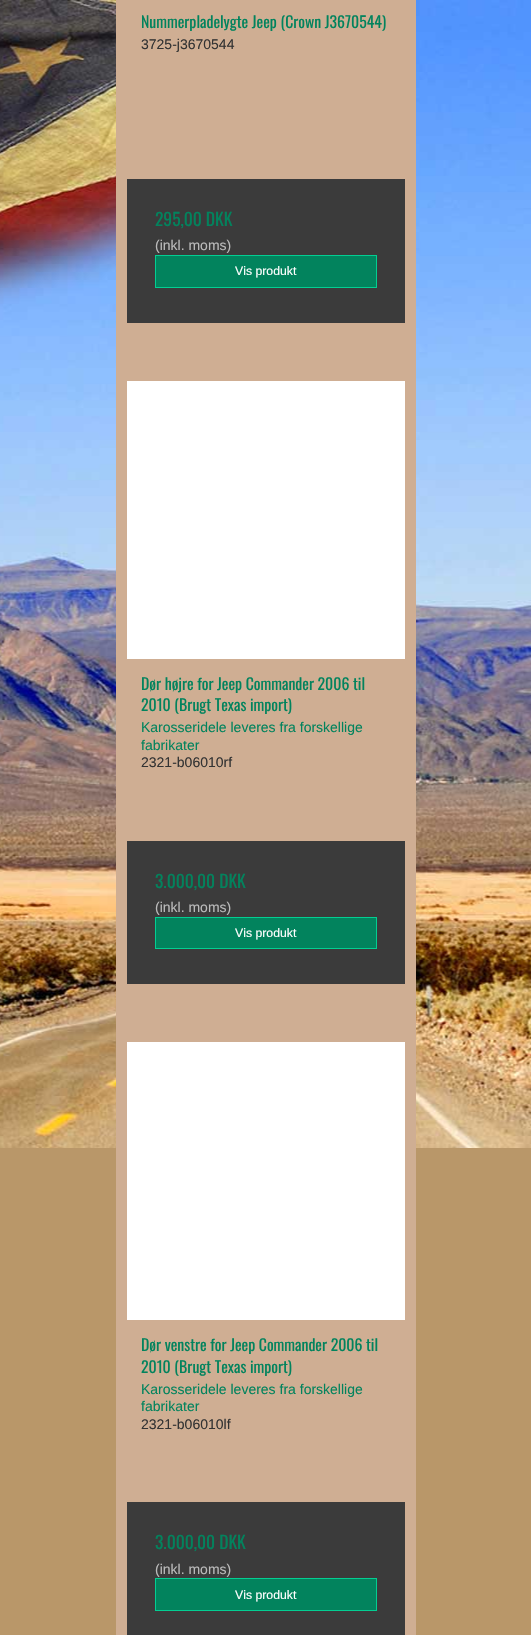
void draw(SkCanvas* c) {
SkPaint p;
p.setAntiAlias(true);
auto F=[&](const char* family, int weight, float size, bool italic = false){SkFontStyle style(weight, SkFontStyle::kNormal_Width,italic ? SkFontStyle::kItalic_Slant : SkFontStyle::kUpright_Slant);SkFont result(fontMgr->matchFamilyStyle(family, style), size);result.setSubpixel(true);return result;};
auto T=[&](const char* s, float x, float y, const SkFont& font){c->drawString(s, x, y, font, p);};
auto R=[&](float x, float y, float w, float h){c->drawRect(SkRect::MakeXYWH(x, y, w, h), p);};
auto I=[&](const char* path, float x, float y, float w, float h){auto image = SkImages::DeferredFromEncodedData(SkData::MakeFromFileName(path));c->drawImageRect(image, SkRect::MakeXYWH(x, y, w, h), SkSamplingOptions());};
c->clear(0xffb99769);
I("1.png",0,0,531,1148);
p.setColor(0xffcfae93);
R(116,0,300,1635);
auto f1 = F("Oswald",400,15.75);
p.setColor(0xff02835d);
T("Nummerpladelygte Jeep (Crown J3670544)",141,28,f1);
auto f2 = F("Liberation Sans",400,14);
p.setColor(0xff333333);
T("3725-j3670544",141,49,f2);
p.setColor(0xff3b3b3b);
R(127,179,278,144);
auto f3 = F("Oswald",400,17.5);
p.setColor(0xff02835d);
T("295,00 DKK",155,226,f3);
p.setColor(0xffbbbbbb);
T("(inkl. moms)",155,250,f2);
p.setColor(0xff02835d);
c->drawRect(SkRect::MakeXYWH(155.5,255.5,221,32),p);
p.setStroke(true);
p.setStrokeWidth(1);
p.setColor(0xff03ce92);
c->drawRect(SkRect::MakeXYWH(155.5,255.5,221,32),p);
auto f4 = F("Liberation Sans",400,12.25);
p.setStroke(false);
p.setColor(0xffffffff);
T("Vis produkt",235,275,f4);
R(127,381,278,278);
p.setColor(0xff02835d);
T("Dør højre for Jeep Commander 2006 til",141,690,f1);
T("2010 (Brugt Texas import)",141,711,f1);
T("Karosseridele leveres fra forskellige",141,732,f2);
T("fabrikater",141,750,f2);
p.setColor(0xff333333);
T("2321-b06010rf",141,767,f2);
p.setColor(0xff3b3b3b);
R(127,841,278,143);
p.setColor(0xff02835d);
T("3.000,00 DKK",155,888,f3);
p.setColor(0xffbbbbbb);
T("(inkl. moms)",155,912,f2);
p.setColor(0xff02835d);
c->drawRect(SkRect::MakeXYWH(155.5,917.5,221,31),p);
p.setStroke(true);
p.setColor(0xff03ce92);
c->drawRect(SkRect::MakeXYWH(155.5,917.5,221,31),p);
p.setStroke(false);
p.setColor(0xffffffff);
T("Vis produkt",235,937,f4);
R(127,1042,278,278);
p.setColor(0xff02835d);
T("Dør venstre for Jeep Commander 2006 til",141,1351,f1);
T("2010 (Brugt Texas import)",141,1373,f1);
T("Karosseridele leveres fra forskellige",141,1394,f2);
T("fabrikater",141,1411,f2);
p.setColor(0xff333333);
T("2321-b06010lf",141,1429,f2);
p.setColor(0xff3b3b3b);
R(127,1502,278,133);
p.setColor(0xff02835d);
T("3.000,00 DKK",155,1549,f3);
p.setColor(0xffbbbbbb);
T("(inkl. moms)",155,1574,f2);
p.setColor(0xff02835d);
c->drawRect(SkRect::MakeXYWH(155.5,1578.5,221,32),p);
p.setStroke(true);
p.setColor(0xff03ce92);
c->drawRect(SkRect::MakeXYWH(155.5,1578.5,221,32),p);
p.setStroke(false);
p.setColor(0xffffffff);
T("Vis produkt",235,1599,f4);
}
